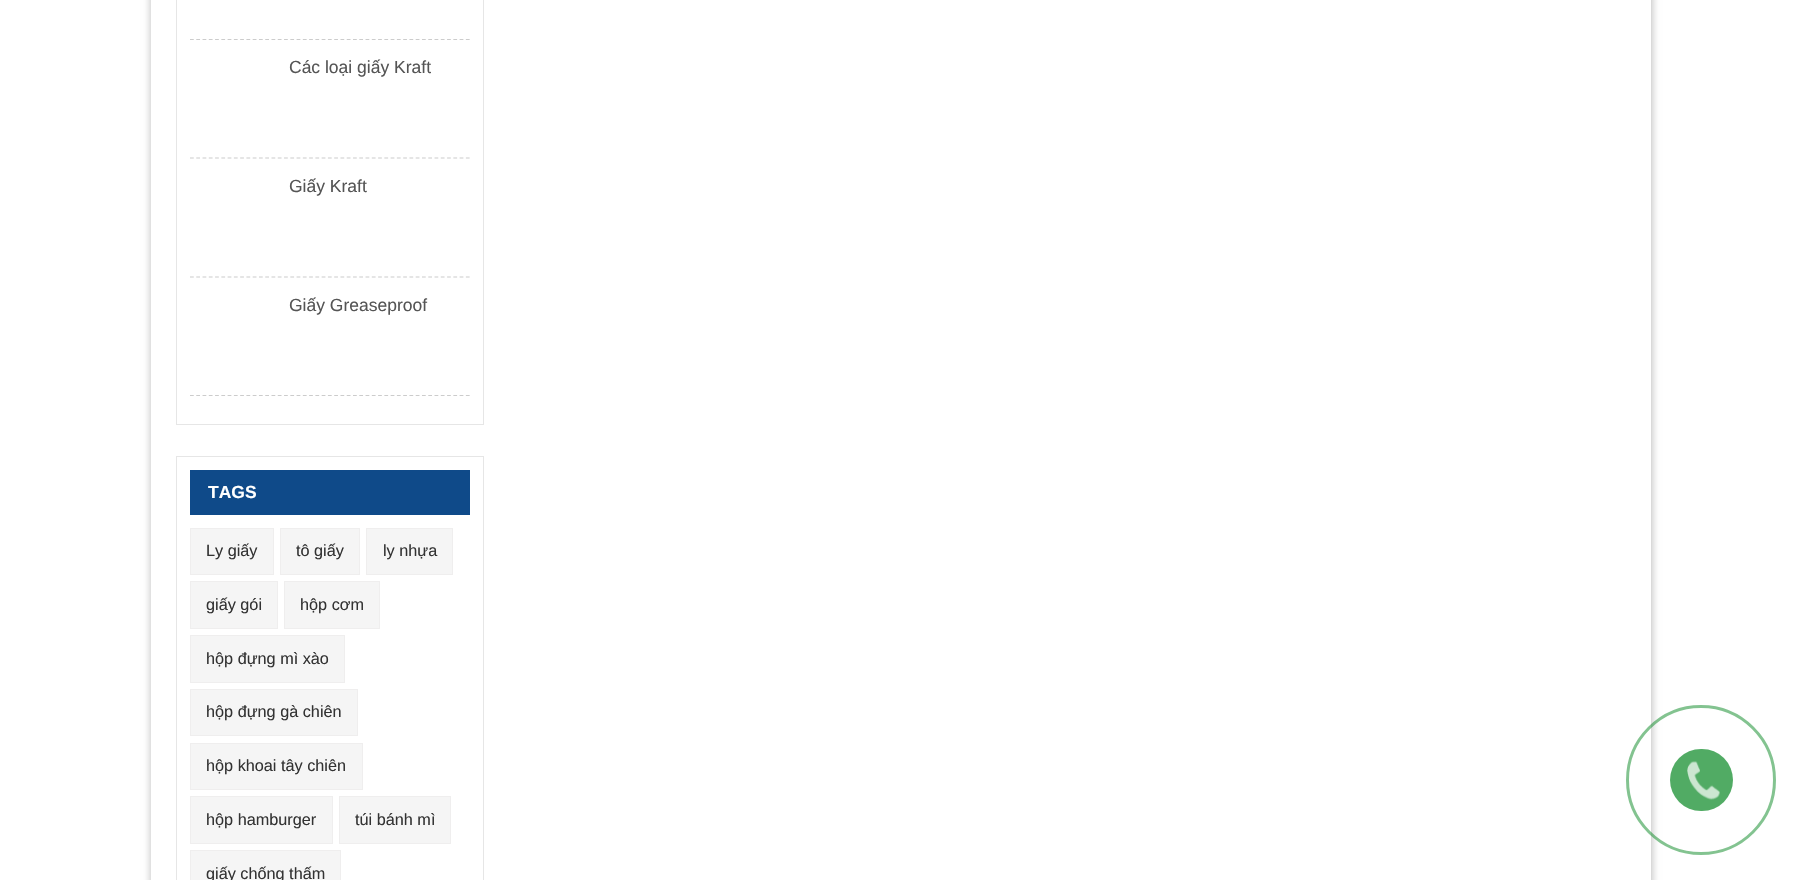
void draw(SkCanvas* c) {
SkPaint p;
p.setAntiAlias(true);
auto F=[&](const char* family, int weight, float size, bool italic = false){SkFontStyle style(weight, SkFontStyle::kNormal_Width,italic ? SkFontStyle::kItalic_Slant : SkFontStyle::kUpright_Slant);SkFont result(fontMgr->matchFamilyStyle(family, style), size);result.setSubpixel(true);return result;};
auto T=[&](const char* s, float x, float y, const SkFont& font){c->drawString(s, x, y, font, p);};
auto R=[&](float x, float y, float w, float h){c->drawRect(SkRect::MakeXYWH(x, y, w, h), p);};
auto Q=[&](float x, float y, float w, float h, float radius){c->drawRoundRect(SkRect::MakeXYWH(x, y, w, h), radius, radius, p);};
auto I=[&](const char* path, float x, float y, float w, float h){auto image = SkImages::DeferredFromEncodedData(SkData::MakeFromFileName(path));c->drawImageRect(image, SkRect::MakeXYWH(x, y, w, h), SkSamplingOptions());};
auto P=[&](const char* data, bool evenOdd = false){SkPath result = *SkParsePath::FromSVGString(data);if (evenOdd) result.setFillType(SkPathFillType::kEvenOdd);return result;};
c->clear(0xffffffff);
p.setColor(0x26000000);
p.setMaskFilter(SkMaskFilter::MakeBlur(kNormal_SkBlurStyle, 3));
c->drawRect(SkRect::MakeXYWH(149,-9,1500,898),p);
p.setMaskFilter(nullptr);
p.setMaskFilter(SkMaskFilter::MakeBlur(kNormal_SkBlurStyle, 3));
c->drawRect(SkRect::MakeXYWH(154,-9,1500,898),p);
p.setMaskFilter(nullptr);
p.setColor(0xffffffff);
R(151,0,1500,880);
p.setStroke(true);
p.setStrokeWidth(1);
p.setColor(0xffe6e6e6);
c->drawRect(SkRect::MakeXYWH(176.5,-.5,307,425),p);
p.setStrokeWidth(1.2);
p.setColor(0xffcccccc);
p.setPathEffect(SkDashPathEffect::Make({{3.75f,2.52f}}, 0));
c->drawPath(P("M190 39.5h280"),p);
p.setPathEffect(nullptr);
p.setPathEffect(SkDashPathEffect::Make({{3.75f,2.52f}}, 0));
c->drawPath(P("M190 158h280"),p);
p.setPathEffect(nullptr);
auto f1 = F("Liberation Sans",400,17.5);
p.setStroke(false);
p.setColor(0xff555555);
T("Các loại giấy Kraft",289,73,f1);
p.setStroke(true);
p.setColor(0xffcccccc);
p.setPathEffect(SkDashPathEffect::Make({{3.75f,2.52f}}, 0));
c->drawPath(P("M190 277h280"),p);
p.setPathEffect(nullptr);
p.setStroke(false);
p.setColor(0xff555555);
T("Giấy Kraft",289,192,f1);
p.setStroke(true);
p.setColor(0xffcccccc);
p.setPathEffect(SkDashPathEffect::Make({{3.75f,2.52f}}, 0));
c->drawPath(P("M190 395.5h280"),p);
p.setPathEffect(nullptr);
p.setStroke(false);
p.setColor(0xff555555);
T("Giấy Greaseproof",289,311,f1);
p.setStroke(true);
p.setStrokeWidth(1);
p.setColor(0xffe6e6e6);
c->drawRect(SkRect::MakeXYWH(176.5,456.5,307,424),p);
p.setStroke(false);
p.setColor(0xff0f4a89);
R(190,470,280,45);
auto f2 = F("Liberation Sans",700,17.5);
p.setColor(0xffffffff);
T("TAGS",208,498,f2);
p.setColor(0xfff5f5f5);
c->drawRect(SkRect::MakeXYWH(190.5,528.5,83,46),p);
p.setStroke(true);
p.setColor(0xffefeeee);
c->drawRect(SkRect::MakeXYWH(190.5,528.5,83,46),p);
auto f3 = F("Liberation Sans",400,16.25);
p.setStroke(false);
p.setColor(0xff333333);
T("Ly giấy",206,556,f3);
p.setColor(0xfff5f5f5);
c->drawRect(SkRect::MakeXYWH(280.5,528.5,79,46),p);
p.setStroke(true);
p.setColor(0xffefeeee);
c->drawRect(SkRect::MakeXYWH(280.5,528.5,79,46),p);
p.setStroke(false);
p.setColor(0xff333333);
T("tô giấy",296,556,f3);
p.setColor(0xfff5f5f5);
c->drawRect(SkRect::MakeXYWH(366.5,528.5,86,46),p);
p.setStroke(true);
p.setColor(0xffefeeee);
c->drawRect(SkRect::MakeXYWH(366.5,528.5,86,46),p);
p.setStroke(false);
p.setColor(0xff333333);
T("ly nhựa",383,556,f3);
p.setColor(0xfff5f5f5);
c->drawRect(SkRect::MakeXYWH(190.5,581.5,87,47),p);
p.setStroke(true);
p.setColor(0xffefeeee);
c->drawRect(SkRect::MakeXYWH(190.5,581.5,87,47),p);
p.setStroke(false);
p.setColor(0xff333333);
T("giấy gói",206,610,f3);
p.setColor(0xfff5f5f5);
c->drawRect(SkRect::MakeXYWH(284.5,581.5,95,47),p);
p.setStroke(true);
p.setColor(0xffefeeee);
c->drawRect(SkRect::MakeXYWH(284.5,581.5,95,47),p);
p.setStroke(false);
p.setColor(0xff333333);
T("hộp cơm",300,610,f3);
p.setColor(0xfff5f5f5);
c->drawRect(SkRect::MakeXYWH(190.5,635.5,154,47),p);
p.setStroke(true);
p.setColor(0xffefeeee);
c->drawRect(SkRect::MakeXYWH(190.5,635.5,154,47),p);
p.setStroke(false);
p.setColor(0xff333333);
T("hộp đựng mì xào",206,664,f3);
p.setColor(0xfff5f5f5);
c->drawRect(SkRect::MakeXYWH(190.5,689.5,167,46),p);
p.setStroke(true);
p.setColor(0xffefeeee);
c->drawRect(SkRect::MakeXYWH(190.5,689.5,167,46),p);
p.setStroke(false);
p.setColor(0xff333333);
T("hộp đựng gà chiên",206,717,f3);
p.setColor(0xfff5f5f5);
c->drawRect(SkRect::MakeXYWH(190.5,743.5,172,46),p);
p.setStroke(true);
p.setColor(0xffefeeee);
c->drawRect(SkRect::MakeXYWH(190.5,743.5,172,46),p);
p.setStroke(false);
p.setColor(0xff333333);
T("hộp khoai tây chiên",206,771,f3);
p.setColor(0xfff5f5f5);
c->drawRect(SkRect::MakeXYWH(190.5,796.5,142,47),p);
p.setStroke(true);
p.setColor(0xffefeeee);
c->drawRect(SkRect::MakeXYWH(190.5,796.5,142,47),p);
p.setStroke(false);
p.setColor(0xff333333);
T("hộp hamburger",206,825,f3);
p.setColor(0xfff5f5f5);
c->drawRect(SkRect::MakeXYWH(339.5,796.5,111,47),p);
p.setStroke(true);
p.setColor(0xffefeeee);
c->drawRect(SkRect::MakeXYWH(339.5,796.5,111,47),p);
p.setStroke(false);
p.setColor(0xff333333);
T("túi bánh mì",355,825,f3);
p.setColor(0xfff5f5f5);
c->drawRect(SkRect::MakeXYWH(190.5,850.5,150,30),p);
p.setStroke(true);
p.setColor(0xffefeeee);
c->drawRect(SkRect::MakeXYWH(190.5,850.5,150,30),p);
p.setStroke(false);
p.setColor(0xff333333);
T("giấy chống thấm",206,879,f3);
p.setStroke(true);
p.setStrokeWidth(3);
p.setColor(0x80078721);
c->drawCircle(1701,780,73.5,p);
p.setStroke(false);
p.setColor(0xff51ab64);
Q(1670,749,63,62,31);
I("1.png",1687,761,33,39);
}
